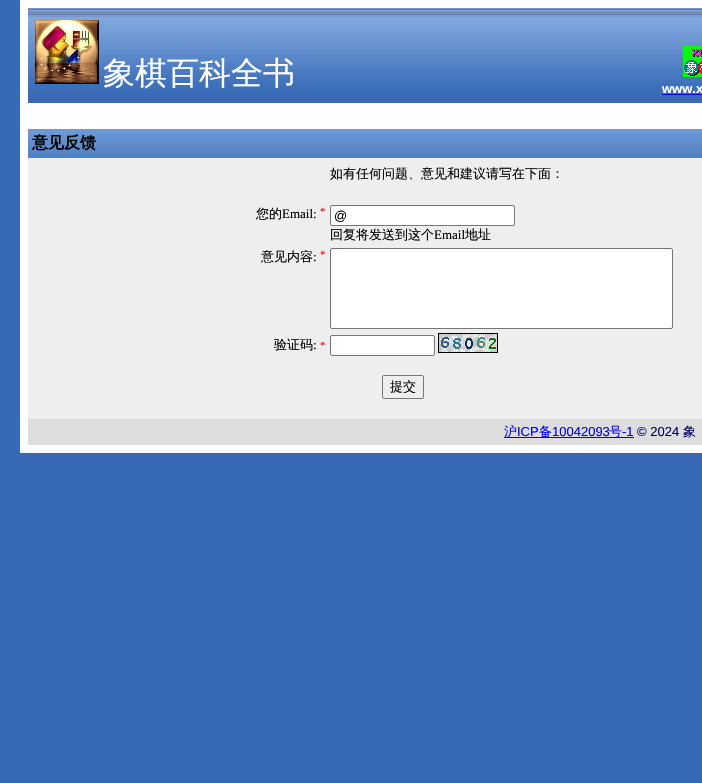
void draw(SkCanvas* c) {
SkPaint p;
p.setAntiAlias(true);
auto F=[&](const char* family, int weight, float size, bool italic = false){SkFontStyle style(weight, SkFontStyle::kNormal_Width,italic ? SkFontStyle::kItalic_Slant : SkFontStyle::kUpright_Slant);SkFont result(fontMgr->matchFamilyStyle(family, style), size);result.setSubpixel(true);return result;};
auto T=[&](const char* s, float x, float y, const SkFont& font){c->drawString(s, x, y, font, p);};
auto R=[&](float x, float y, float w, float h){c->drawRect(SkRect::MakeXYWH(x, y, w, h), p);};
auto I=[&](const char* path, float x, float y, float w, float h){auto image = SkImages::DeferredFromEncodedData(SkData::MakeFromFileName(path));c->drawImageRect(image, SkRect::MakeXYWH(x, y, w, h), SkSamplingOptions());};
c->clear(0xff3869b6);
p.setColor(0xffffffff);
R(20,0,682,453);
I("1.png",28,8,674,95);
I("2.png",35,20,64,64);
auto f1 = F("WenQuanYi Zen Hei",500,32);
T("象棋百科全书",103,84,f1);
I("3.png",683,46,19,31);
auto f2 = F("Liberation Sans",700,13);
T("www.x",662,93,f2);
p.setColor(0xff0000ee);
R(662,94,40,1);
I("4.png",28,129,674,29);
auto f3 = F("WenQuanYi Zen Hei",700,16);
p.setColor(0xff000000);
T("意见反馈",32,148,f3);
p.setColor(0xffeeeeee);
R(28,158,674,261);
auto f4 = F("WenQuanYi Zen Hei",500,13);
p.setColor(0xff000000);
T("如有任何问题、意见和建议请写在下面：",330,178,f4);
T("您的",256,218,f4);
auto f5 = F("Liberation Serif",400,13);
T("Email:",282,218,f5);
auto f6 = F("Liberation Serif",400,11);
p.setColor(0xffff0000);
T("*",320,215,f6);
p.setColor(0xffffffff);
c->drawRoundRect(SkRect::MakeXYWH(330.5,205.5,184,20),1.5,1.5,p);
p.setStroke(true);
p.setStrokeWidth(1);
p.setColor(0xff767676);
c->drawRoundRect(SkRect::MakeXYWH(330.5,205.5,184,20),1.5,1.5,p);
auto f7 = F("Liberation Sans",400,13);
p.setStroke(false);
p.setColor(0xff000000);
T("@",334,220,f7);
T("回复将发送到这个",330,239,f4);
T("Email",434,239,f5);
T("地址",465,239,f4);
T("意见内容",261,261,f4);
T(":",313,261,f5);
p.setColor(0xffff0000);
T("*",320,258,f6);
p.setColor(0xffffffff);
c->drawRoundRect(SkRect::MakeXYWH(330.5,248.5,342,80),1.5,1.5,p);
p.setStroke(true);
p.setColor(0xff767676);
c->drawRoundRect(SkRect::MakeXYWH(330.5,248.5,342,80),1.5,1.5,p);
p.setStroke(false);
p.setColor(0xff000000);
T("验证码",274,349,f4);
T(":",313,349,f5);
p.setColor(0xffff0000);
T("*",320,349,f6);
p.setColor(0xffffffff);
c->drawRoundRect(SkRect::MakeXYWH(330.5,335.5,104,20),1.5,1.5,p);
p.setStroke(true);
p.setColor(0xff767676);
c->drawRoundRect(SkRect::MakeXYWH(330.5,335.5,104,20),1.5,1.5,p);
I("5.png",438,333,60,20);
c->drawRoundRect(SkRect::MakeXYWH(382.5,375.5,41,23),1.5,1.5,p);
p.setStroke(false);
p.setColor(0xff000000);
T("提交",390,391,f4);
p.setColor(0xffdddddd);
R(28,419,674,26);
p.setColor(0xff0000ee);
R(504,437,130,1);
T("沪",504,436,f4);
T("ICP",517,436,f7);
T("备",539,436,f4);
T("10042093",552,436,f7);
T("号",609,436,f4);
T("-1",622,436,f7);
p.setColor(0xff000066);
T("© 2024",637,436,f7);
T("象",683,436,f4);
}
